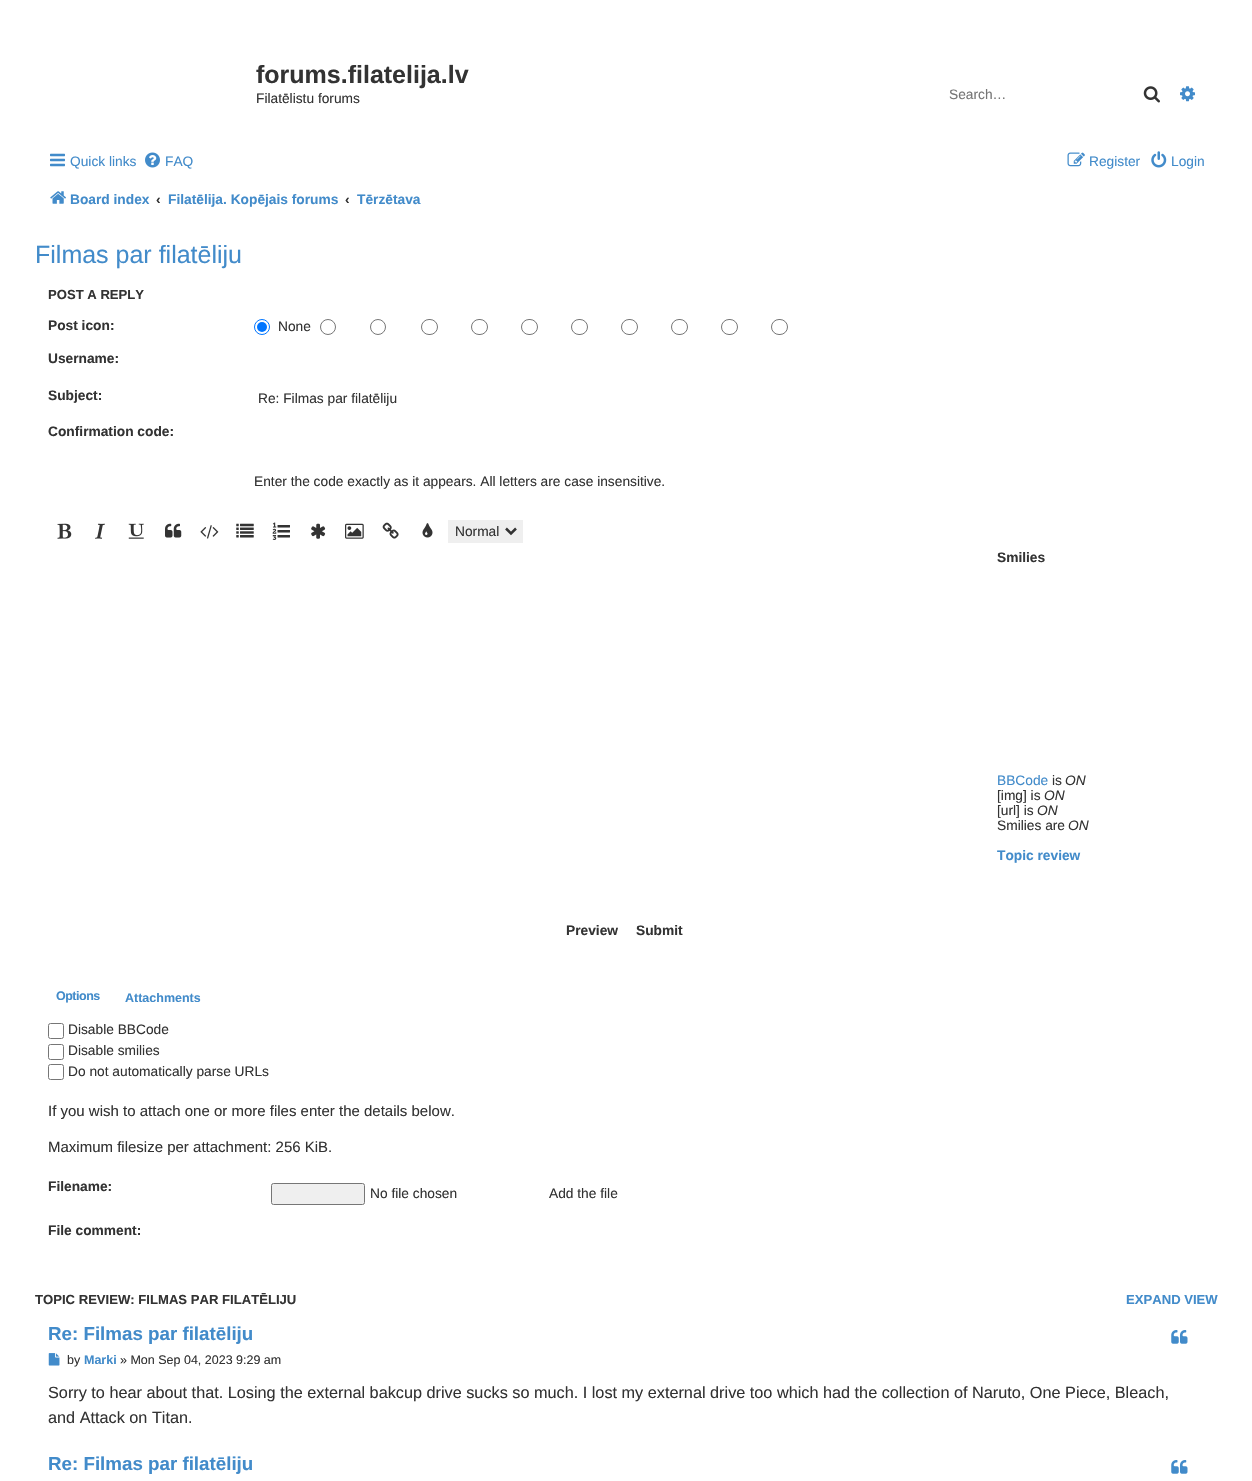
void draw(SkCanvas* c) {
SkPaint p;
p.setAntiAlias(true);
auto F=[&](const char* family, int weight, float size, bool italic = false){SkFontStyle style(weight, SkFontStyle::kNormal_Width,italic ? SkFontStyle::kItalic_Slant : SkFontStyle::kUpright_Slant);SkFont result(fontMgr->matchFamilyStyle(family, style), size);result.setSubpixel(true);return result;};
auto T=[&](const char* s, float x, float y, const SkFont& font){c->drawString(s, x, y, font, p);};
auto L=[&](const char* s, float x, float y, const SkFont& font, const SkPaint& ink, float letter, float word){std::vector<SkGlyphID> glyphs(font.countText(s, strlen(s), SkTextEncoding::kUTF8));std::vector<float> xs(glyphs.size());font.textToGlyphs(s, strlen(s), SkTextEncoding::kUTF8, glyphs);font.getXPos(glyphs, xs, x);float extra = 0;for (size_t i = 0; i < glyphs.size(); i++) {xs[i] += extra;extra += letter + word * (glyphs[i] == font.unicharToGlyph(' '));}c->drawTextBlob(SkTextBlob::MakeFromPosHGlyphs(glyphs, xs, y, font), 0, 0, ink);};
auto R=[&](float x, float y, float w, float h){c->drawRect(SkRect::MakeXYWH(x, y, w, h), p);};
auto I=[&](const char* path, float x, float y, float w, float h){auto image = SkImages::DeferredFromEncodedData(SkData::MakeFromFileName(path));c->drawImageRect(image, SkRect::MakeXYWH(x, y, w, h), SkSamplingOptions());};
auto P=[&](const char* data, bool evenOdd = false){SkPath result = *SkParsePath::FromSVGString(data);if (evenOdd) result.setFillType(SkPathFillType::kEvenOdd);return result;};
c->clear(0xffffffff);
auto f1 = F("Liberation Sans",700,25);
p.setColor(0xff333333);
T("forums.filatelija.lv",256,83,f1);
auto f2 = F("Liberation Sans",400,13.75);
T("Filatēlistu forums",256,103,f2);
p.setColor(0xff757575);
T("Search…",949,99,f2);
I("1.png",1143,86,17,17);
I("2.png",1180,86,15,16);
I("3.png",50,153,15,14);
p.setColor(0xff428bca);
T("Quick links",70,166,f2);
I("4.png",145,152,15,16);
T("FAQ",165,166,f2);
I("5.png",1067,152,18,15);
T("Register",1089,166,f2);
I("6.png",1151,151,16,17);
T("Login",1171,166,f2);
I("7.png",50,191,16,13);
auto f3 = F("Liberation Sans",700,13.75);
T("Board index",70,204,f3);
p.setColor(0xff333333);
T("‹",156,204,f3);
p.setColor(0xff428bca);
T("Filatēlija. Kopējais forums",168,204,f3);
p.setColor(0xff333333);
T("‹",345,204,f3);
p.setColor(0xff428bca);
T("Tērzētava",357,204,f3);
auto f4 = F("Liberation Sans",400,25);
T("Filmas par filatēliju",35,263,f4);
auto f5 = F("Liberation Sans",700,13.1);
p.setColor(0xff333333);
T("POST A REPLY",48,299,f5);
T("Post icon:",48,330,f3);
p.setStroke(true);
p.setStrokeWidth(1);
p.setColor(0xff0075ff);
c->drawCircle(262,327,7.5,p);
p.setStroke(false);
c->drawCircle(262,327,5,p);
p.setColor(0xff333333);
T("None",278,331,f2);
p.setStroke(true);
p.setColor(0xff767676);
c->drawCircle(328,327,7.5,p);
c->drawCircle(378,327,7.5,p);
c->drawRoundRect(SkRect::MakeXYWH(421.5,319.5,16,15),7.5,7.5,p);
c->drawRoundRect(SkRect::MakeXYWH(471.5,319.5,16,15),7.5,7.5,p);
c->drawRoundRect(SkRect::MakeXYWH(521.5,319.5,16,15),7.5,7.5,p);
c->drawRoundRect(SkRect::MakeXYWH(571.5,319.5,16,15),7.5,7.5,p);
c->drawRoundRect(SkRect::MakeXYWH(621.5,319.5,16,15),7.5,7.5,p);
c->drawRoundRect(SkRect::MakeXYWH(671.5,319.5,16,15),7.5,7.5,p);
c->drawRoundRect(SkRect::MakeXYWH(721.5,319.5,16,15),7.5,7.5,p);
c->drawRoundRect(SkRect::MakeXYWH(771.5,319.5,16,15),7.5,7.5,p);
p.setStroke(false);
p.setColor(0xff333333);
T("Username:",48,363,f3);
T("Subject:",48,400,f3);
T("Re: Filmas par filatēliju",258,403,f2);
T("Confirmation code:",48,436,f3);
T("Enter the code exactly as it appears. All letters are case insensitive.",254,486,f2);
I("8.png",57,523,15,16);
I("9.png",95,523,10,16);
I("10.png",128,523,16,16);
I("11.png",165,523,17,15);
I("12.png",200,525,19,14);
I("13.png",236,523,18,15);
I("14.png",272,522,18,18);
I("15.png",311,523,15,16);
I("16.png",345,523,19,16);
I("17.png",382,522,17,17);
I("18.png",422,523,11,15);
p.setColor(0xffefefef);
R(448,520,75,23);
p.setStroke(true);
p.setStrokeWidth(2.5);
p.setColor(0xff333333);
c->drawPath(P("M506 528.5l5 5l5-5"),p);
p.setStroke(false);
T("Normal",455,536,f2);
T("Smilies",997,562,f3);
p.setColor(0xff428bca);
T("BBCode",997,785,f2);
p.setColor(0xff333333);
T("is",1052,785,f2);
auto f6 = F("Liberation Sans",400,13.75,true);
T("ON",1065,785,f6);
T("[img] is",997,800,f2);
T("ON",1044,800,f6);
T("[url] is",997,815,f2);
T("ON",1037,815,f6);
T("Smilies are",997,830,f2);
T("ON",1068,830,f6);
p.setColor(0xff428bca);
T("Topic review",997,860,f3);
p.setColor(0xff333333);
T("Preview",566,935,f3);
T("Submit",636,935,f3);
auto f7 = F("Liberation Sans",700,12.5);
p.setColor(0xff428bca);
L("Options",56,1000,f7,p,-.5,0);
T("Attachments",125,1002,f7);
p.setStroke(true);
p.setStrokeWidth(1);
p.setColor(0xff767676);
c->drawRoundRect(SkRect::MakeXYWH(48.5,1023.5,15,15),2,2,p);
p.setStroke(false);
p.setColor(0xff333333);
T("Disable BBCode",68,1034,f2);
p.setStroke(true);
p.setColor(0xff767676);
c->drawRoundRect(SkRect::MakeXYWH(48.5,1044.5,15,15),2,2,p);
p.setStroke(false);
p.setColor(0xff333333);
T("Disable smilies",68,1055,f2);
p.setStroke(true);
p.setColor(0xff767676);
c->drawRoundRect(SkRect::MakeXYWH(48.5,1064.5,15,15),2,2,p);
p.setStroke(false);
p.setColor(0xff333333);
T("Do not automatically parse URLs",68,1076,f2);
auto f8 = F("Liberation Sans",400,15);
T("If you wish to attach one or more files enter the details below.",48,1116,f8);
T("Maximum filesize per attachment: 256 KiB.",48,1152,f8);
T("Filename:",48,1191,f3);
p.setColor(0xffefefef);
c->drawRoundRect(SkRect::MakeXYWH(271.5,1183.5,93,21),2,2,p);
p.setStroke(true);
p.setColor(0xff767676);
c->drawRoundRect(SkRect::MakeXYWH(271.5,1183.5,93,21),2,2,p);
p.setStroke(false);
p.setColor(0xff333333);
T("No file chosen",370,1198,f2);
T("Add the file",549,1198,f2);
T("File comment:",48,1235,f3);
T("TOPIC REVIEW: FILMAS PAR FILATĒLIJU",35,1304,f5);
p.setColor(0xff428bca);
T("EXPAND VIEW",1126,1304,f5);
auto f9 = F("Liberation Sans",700,18.75);
T("Re: Filmas par filatēliju",48,1340,f9);
I("19.png",1171,1330,17,14);
I("20.png",48,1353,12,13);
auto f10 = F("Liberation Sans",400,12.5);
p.setColor(0xff333333);
T("by",67,1364,f10);
p.setColor(0xff428bca);
T("Marki",84,1364,f7);
p.setColor(0xff333333);
T("» Mon Sep 04, 2023 9:29 am",120,1364,f10);
auto f11 = F("Liberation Sans",400,16.25);
T("Sorry to hear about that. Losing the external bakcup drive sucks so much. I lost my external drive too which had the collection of Naruto, One Piece, Bleach,",48,1398,f11);
T("and Attack on Titan.",48,1423,f11);
p.setColor(0xff428bca);
T("Re: Filmas par filatēliju",48,1470,f9);
I("19.png",1171,1460,17,14);
}
